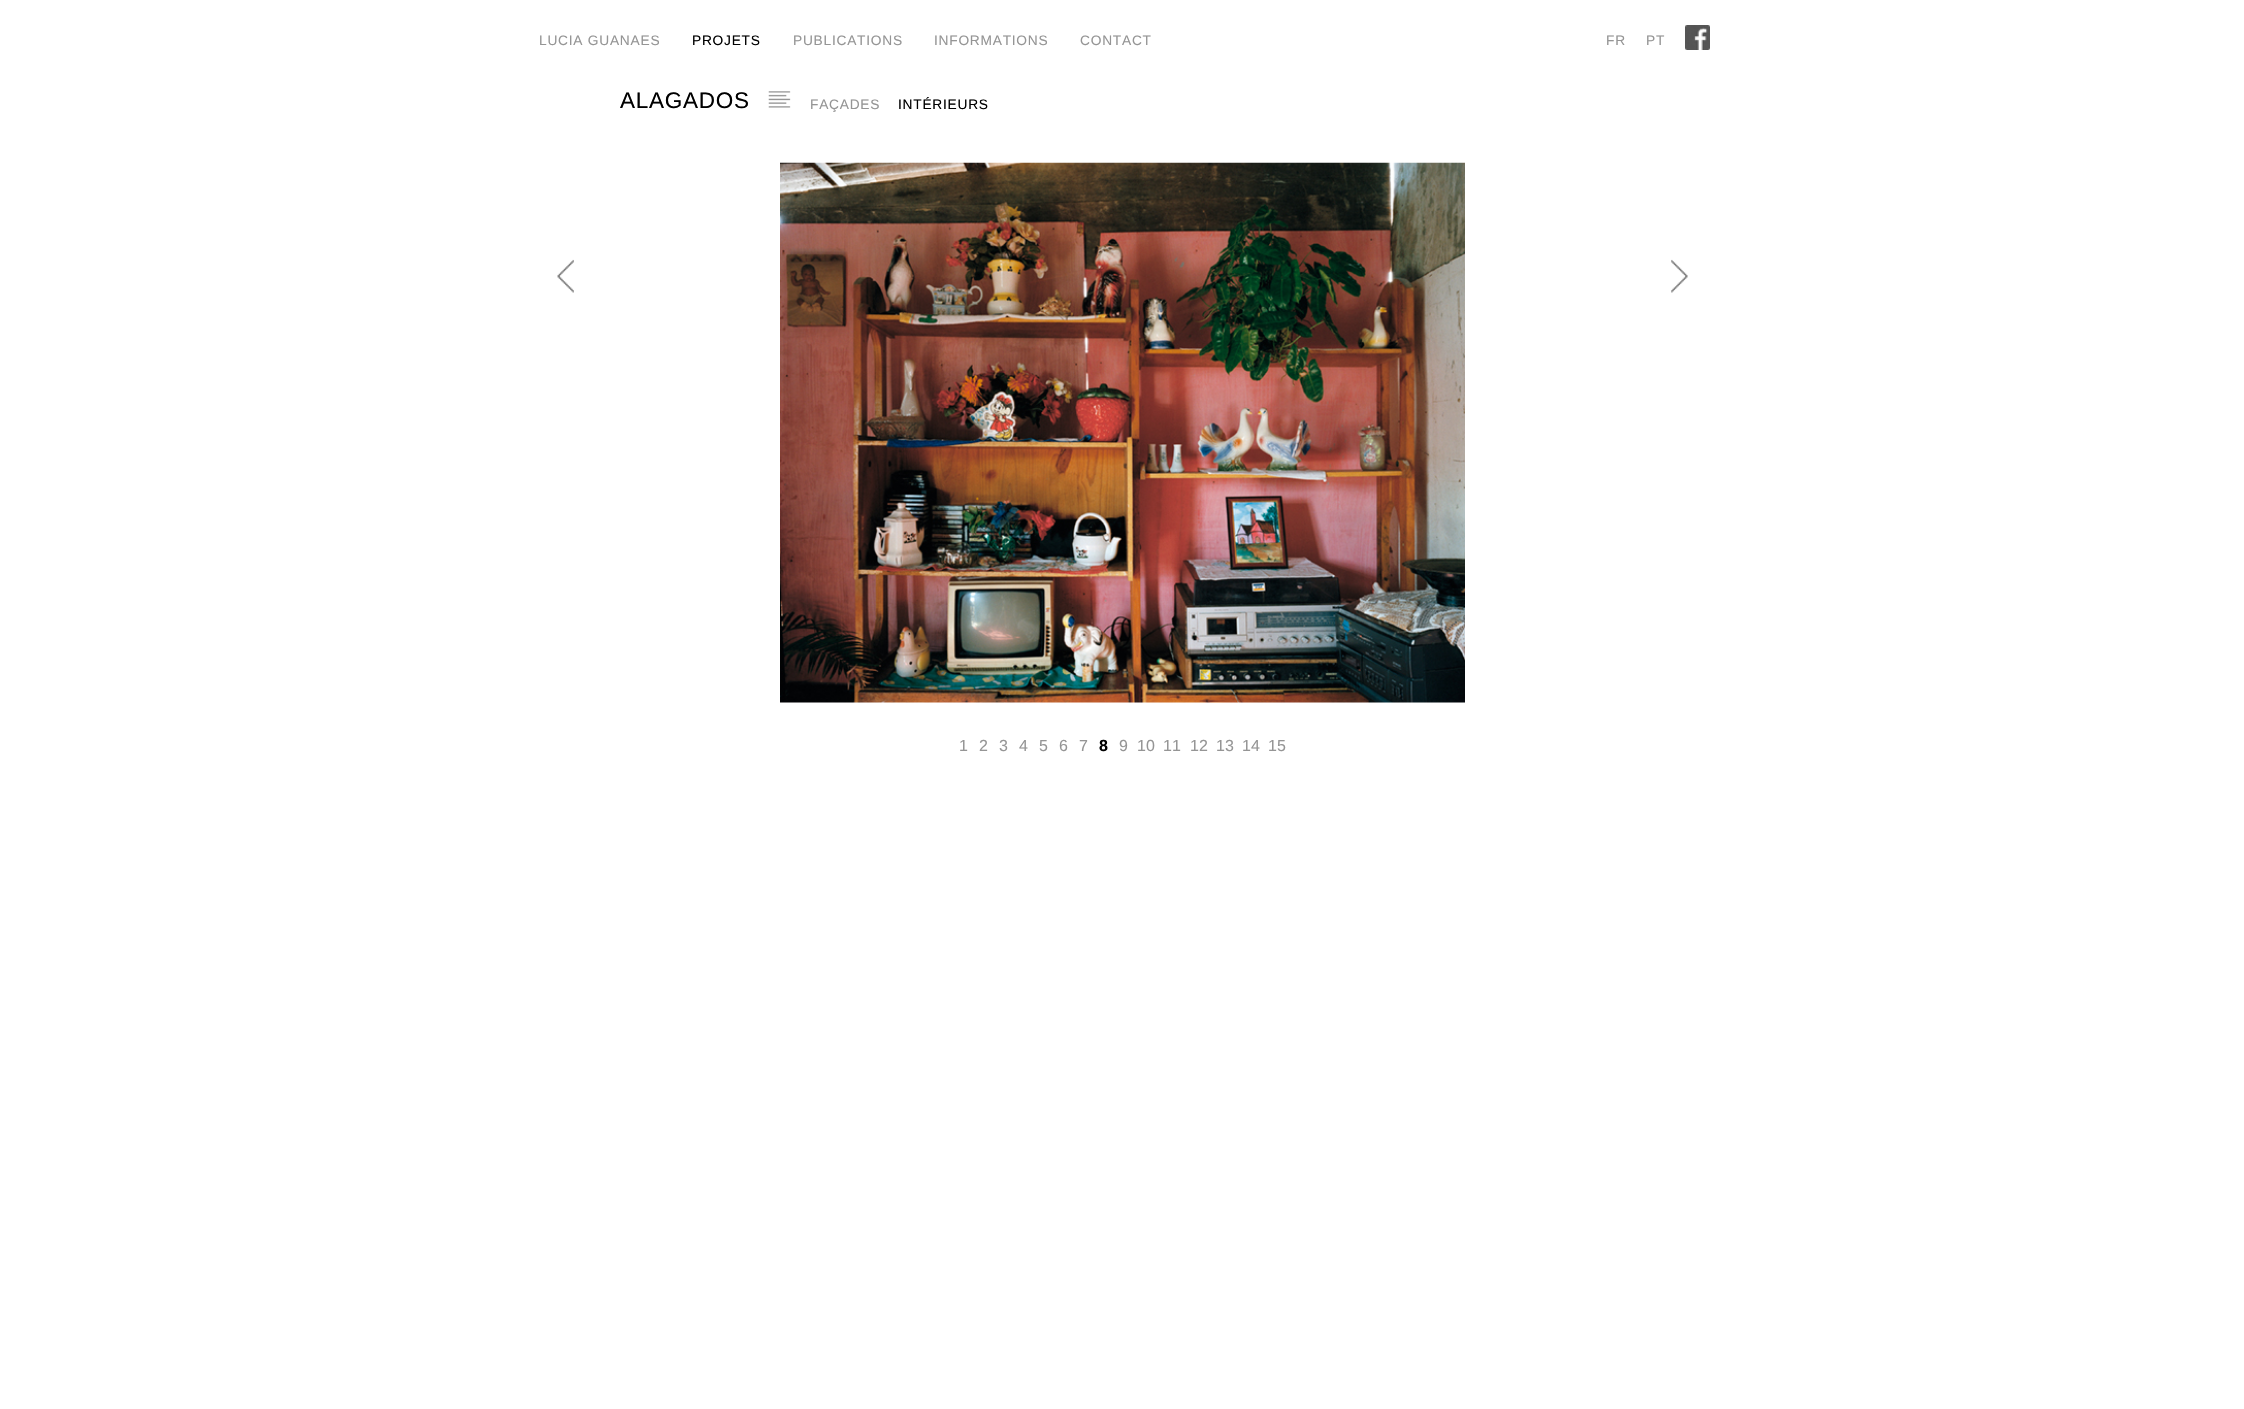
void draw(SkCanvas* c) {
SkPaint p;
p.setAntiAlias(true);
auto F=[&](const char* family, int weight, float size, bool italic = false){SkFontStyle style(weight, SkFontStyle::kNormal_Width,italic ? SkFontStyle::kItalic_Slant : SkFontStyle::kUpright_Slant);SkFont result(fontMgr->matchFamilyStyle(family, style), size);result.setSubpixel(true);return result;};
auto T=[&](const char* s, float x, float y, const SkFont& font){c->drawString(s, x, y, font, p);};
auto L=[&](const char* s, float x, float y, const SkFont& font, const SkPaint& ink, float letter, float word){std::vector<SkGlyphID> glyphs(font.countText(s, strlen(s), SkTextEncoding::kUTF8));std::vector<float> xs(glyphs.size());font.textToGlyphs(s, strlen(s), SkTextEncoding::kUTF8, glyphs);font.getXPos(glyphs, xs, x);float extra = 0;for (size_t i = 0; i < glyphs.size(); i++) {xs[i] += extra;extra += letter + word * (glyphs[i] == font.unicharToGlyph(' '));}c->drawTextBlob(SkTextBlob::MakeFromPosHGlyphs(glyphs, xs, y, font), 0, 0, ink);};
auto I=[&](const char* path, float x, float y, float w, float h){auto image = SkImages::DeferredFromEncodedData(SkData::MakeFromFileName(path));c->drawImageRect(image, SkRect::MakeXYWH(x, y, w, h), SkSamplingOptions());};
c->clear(0xffffffff);
auto f1 = F("Liberation Sans",400,13.75);
p.setColor(0xff959595);
L("LUCIA GUANAES",539,45,f1,p,.75,0);
p.setColor(0xff000000);
L("PROJETS",692,45,f1,p,.75,0);
p.setColor(0xff959595);
L("PUBLICATIONS",793,45,f1,p,.75,0);
L("INFORMATIONS",934,45,f1,p,.75,0);
L("CONTACT",1080,45,f1,p,.75,0);
L("FR",1606,45,f1,p,.75,0);
L("PT",1646,45,f1,p,.75,0);
I("1.png",1685,25,25,25);
auto f2 = F("Liberation Sans",400,22.5);
p.setColor(0xff000000);
L("ALAGADOS",620,108,f2,p,.75,0);
I("2.png",768,91,23,17);
p.setColor(0xff959595);
L("FAÇADES",810,109,f1,p,.75,0);
p.setColor(0xff000000);
L("INTÉRIEURS",898,109,f1,p,.75,0);
I("3.png",557,259,17,34);
I("4.png",780,162,685,541);
I("5.png",1671,259,17,34);
auto f3 = F("Liberation Sans",400,16);
p.setColor(0xff959595);
T("1",959,751,f3);
T("2",979,751,f3);
T("3",999,751,f3);
T("4",1019,751,f3);
T("5",1039,751,f3);
T("6",1059,751,f3);
T("7",1079,751,f3);
auto f4 = F("Liberation Sans",700,16);
p.setColor(0xff000000);
T("8",1099,751,f4);
p.setColor(0xff959595);
T("9",1119,751,f3);
T("10",1137,751,f3);
T("11",1163,751,f3);
T("12",1190,751,f3);
T("13",1216,751,f3);
T("14",1242,751,f3);
T("15",1268,751,f3);
}
